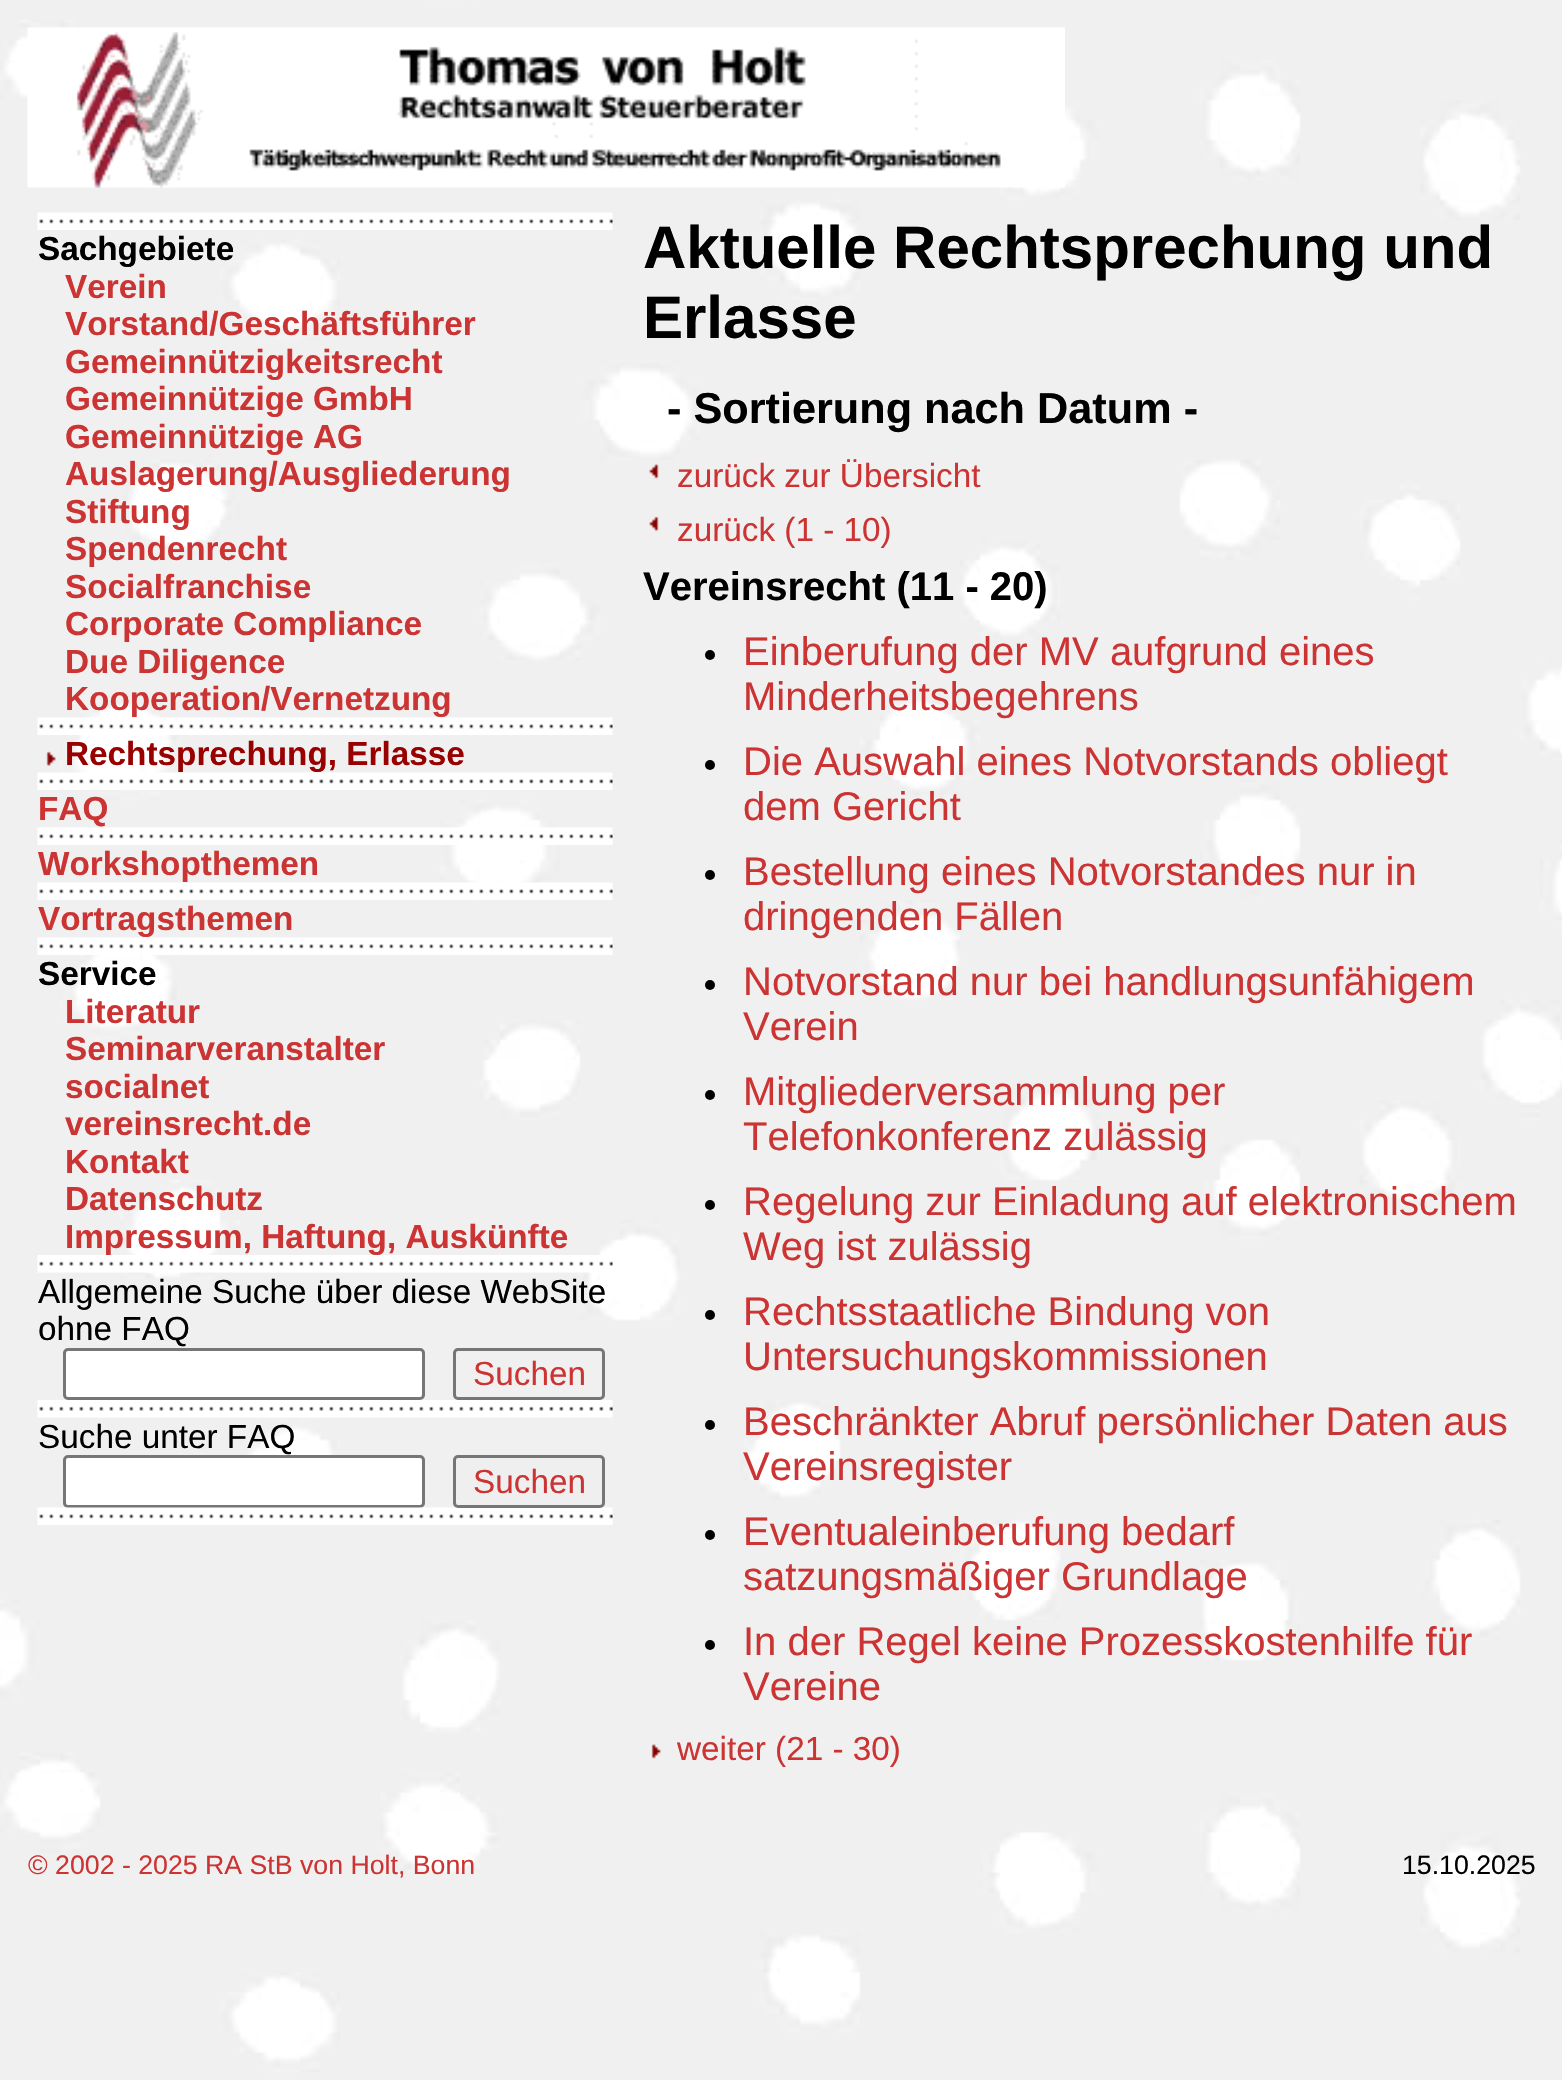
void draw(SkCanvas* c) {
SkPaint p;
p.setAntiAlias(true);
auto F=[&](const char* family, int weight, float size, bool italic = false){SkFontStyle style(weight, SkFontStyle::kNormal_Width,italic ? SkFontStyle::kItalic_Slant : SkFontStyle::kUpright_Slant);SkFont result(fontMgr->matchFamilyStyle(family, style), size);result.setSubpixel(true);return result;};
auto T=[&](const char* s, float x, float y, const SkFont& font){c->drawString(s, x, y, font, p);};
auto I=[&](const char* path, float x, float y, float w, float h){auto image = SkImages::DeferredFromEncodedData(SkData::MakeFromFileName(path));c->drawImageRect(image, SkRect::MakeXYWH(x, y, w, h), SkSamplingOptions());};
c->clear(0xffffffff);
I("1.png",0,0,1562,2080);
I("2.png",27,27,1038,161);
I("3.png",37,212,576,18);
auto f1 = F("Liberation Sans",700,33.3);
p.setColor(0xff000000);
T("Sachgebiete",38,260,f1);
p.setColor(0xffcc3333);
T("Verein",65,298,f1);
T("Vorstand/Geschäftsführer",65,335,f1);
T("Gemeinnützigkeitsrecht",65,373,f1);
T("Gemeinnützige GmbH",65,410,f1);
T("Gemeinnützige AG",65,448,f1);
T("Auslagerung/Ausgliederung",65,485,f1);
T("Stiftung",65,523,f1);
T("Spendenrecht",65,560,f1);
T("Socialfranchise",65,598,f1);
T("Corporate Compliance",65,635,f1);
T("Due Diligence",65,673,f1);
T("Kooperation/Vernetzung",65,710,f1);
I("4.png",37,717,576,18);
I("5.png",46,751,10,15);
p.setColor(0xff990000);
T("Rechtsprechung, Erlasse",65,765,f1);
I("6.png",37,772,576,18);
p.setColor(0xffcc3333);
T("FAQ",38,820,f1);
I("7.png",37,827,576,18);
T("Workshopthemen",38,875,f1);
I("8.png",37,882,576,18);
T("Vortragsthemen",38,930,f1);
I("9.png",37,937,576,18);
p.setColor(0xff000000);
T("Service",38,985,f1);
p.setColor(0xffcc3333);
T("Literatur",65,1023,f1);
T("Seminarveranstalter",65,1060,f1);
T("socialnet",65,1098,f1);
T("vereinsrecht.de",65,1135,f1);
T("Kontakt",65,1173,f1);
T("Datenschutz",65,1210,f1);
T("Impressum, Haftung, Auskünfte",65,1248,f1);
I("10.png",37,1255,576,18);
auto f2 = F("Liberation Sans",400,33.3);
p.setColor(0xff000000);
T("Allgemeine Suche über diese WebSite",38,1303,f2);
T("ohne FAQ",38,1340,f2);
p.setColor(0xffffffff);
c->drawRoundRect(SkRect::MakeXYWH(64.5,1349.5,359,49),3.5,3.5,p);
p.setStroke(true);
p.setStrokeWidth(3);
p.setColor(0xff767676);
c->drawRoundRect(SkRect::MakeXYWH(64.5,1349.5,359,49),3.5,3.5,p);
c->drawRoundRect(SkRect::MakeXYWH(454.5,1349.5,149,49),3.5,3.5,p);
p.setStroke(false);
p.setColor(0xffcc3333);
T("Suchen",473,1385,f2);
I("11.png",37,1400,576,18);
p.setColor(0xff000000);
T("Suche unter FAQ",38,1448,f2);
p.setColor(0xffffffff);
c->drawRoundRect(SkRect::MakeXYWH(64.5,1456.5,359,50),3.5,3.5,p);
p.setStroke(true);
p.setColor(0xff767676);
c->drawRoundRect(SkRect::MakeXYWH(64.5,1456.5,359,50),3.5,3.5,p);
I("12.png",37,1507,576,18);
p.setStroke(false);
p.setColor(0xffefefef);
c->drawRoundRect(SkRect::MakeXYWH(454.5,1456.5,149,50),3.5,3.5,p);
p.setStroke(true);
p.setColor(0xff767676);
c->drawRoundRect(SkRect::MakeXYWH(454.5,1456.5,149,50),3.5,3.5,p);
p.setStroke(false);
p.setColor(0xffcc3333);
T("Suchen",473,1493,f2);
auto f3 = F("Liberation Sans",700,60);
p.setColor(0xff000000);
T("Aktuelle Rechtsprechung und",643,268,f3);
T("Erlasse",643,338,f3);
auto f4 = F("Liberation Sans",700,43.25);
T("- Sortierung nach Datum -",667,423,f4);
I("13.png",649,464,10,15);
p.setColor(0xffcc3333);
T("zurück zur Übersicht",677,487,f2);
I("14.png",649,516,10,15);
T("zurück (1 - 10)",677,541,f2);
auto f5 = F("Liberation Sans",700,40);
p.setColor(0xff000000);
T("Vereinsrecht (11 - 20)",643,600,f5);
c->drawCircle(710,655,5,p);
auto f6 = F("Liberation Sans",400,40);
p.setColor(0xffcc3333);
T("Einberufung der MV aufgrund eines",743,665,f6);
T("Minderheitsbegehrens",743,710,f6);
p.setColor(0xff000000);
c->drawCircle(710,765,5,p);
p.setColor(0xffcc3333);
T("Die Auswahl eines Notvorstands obliegt",743,775,f6);
T("dem Gericht",743,820,f6);
p.setColor(0xff000000);
c->drawCircle(710,875,5,p);
p.setColor(0xffcc3333);
T("Bestellung eines Notvorstandes nur in",743,885,f6);
T("dringenden Fällen",743,930,f6);
p.setColor(0xff000000);
c->drawCircle(710,985,5,p);
p.setColor(0xffcc3333);
T("Notvorstand nur bei handlungsunfähigem",743,995,f6);
T("Verein",743,1040,f6);
p.setColor(0xff000000);
c->drawCircle(710,1095,5,p);
p.setColor(0xffcc3333);
T("Mitgliederversammlung per",743,1105,f6);
T("Telefonkonferenz zulässig",743,1150,f6);
p.setColor(0xff000000);
c->drawCircle(710,1205,5,p);
p.setColor(0xffcc3333);
T("Regelung zur Einladung auf elektronischem",743,1215,f6);
T("Weg ist zulässig",743,1260,f6);
p.setColor(0xff000000);
c->drawCircle(710,1315,5,p);
p.setColor(0xffcc3333);
T("Rechtsstaatliche Bindung von",743,1325,f6);
T("Untersuchungskommissionen",743,1370,f6);
p.setColor(0xff000000);
c->drawCircle(710,1425,5,p);
p.setColor(0xffcc3333);
T("Beschränkter Abruf persönlicher Daten aus",743,1435,f6);
T("Vereinsregister",743,1480,f6);
p.setColor(0xff000000);
c->drawCircle(710,1535,5,p);
p.setColor(0xffcc3333);
T("Eventualeinberufung bedarf",743,1545,f6);
T("satzungsmäßiger Grundlage",743,1590,f6);
p.setColor(0xff000000);
c->drawCircle(710,1645,5,p);
p.setColor(0xffcc3333);
T("In der Regel keine Prozesskostenhilfe für",743,1655,f6);
T("Vereine",743,1700,f6);
I("15.png",651,1744,10,15);
T("weiter (21 - 30)",677,1760,f2);
auto f7 = F("Liberation Sans",400,26.7);
T("© 2002 - 2025 RA StB von Holt, Bonn",28,1874,f7);
p.setColor(0xff000000);
T("15.10.2025",1402,1874,f7);
}
